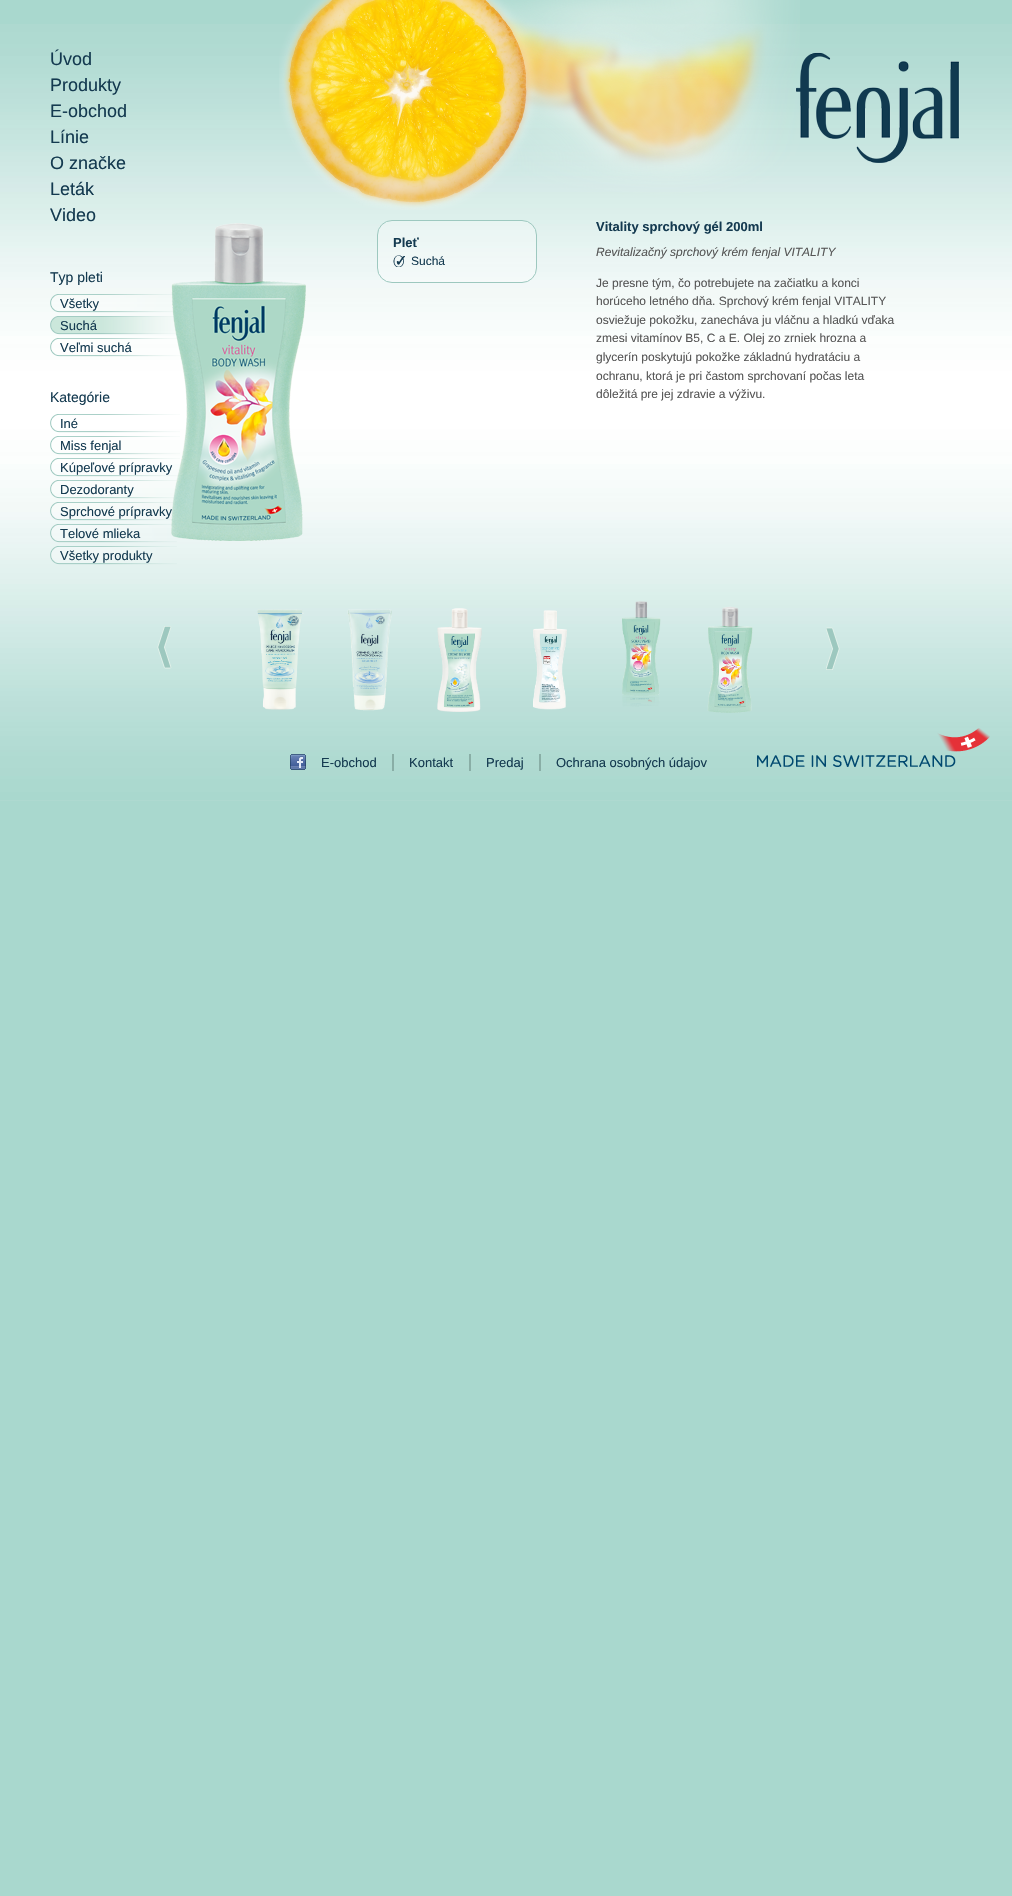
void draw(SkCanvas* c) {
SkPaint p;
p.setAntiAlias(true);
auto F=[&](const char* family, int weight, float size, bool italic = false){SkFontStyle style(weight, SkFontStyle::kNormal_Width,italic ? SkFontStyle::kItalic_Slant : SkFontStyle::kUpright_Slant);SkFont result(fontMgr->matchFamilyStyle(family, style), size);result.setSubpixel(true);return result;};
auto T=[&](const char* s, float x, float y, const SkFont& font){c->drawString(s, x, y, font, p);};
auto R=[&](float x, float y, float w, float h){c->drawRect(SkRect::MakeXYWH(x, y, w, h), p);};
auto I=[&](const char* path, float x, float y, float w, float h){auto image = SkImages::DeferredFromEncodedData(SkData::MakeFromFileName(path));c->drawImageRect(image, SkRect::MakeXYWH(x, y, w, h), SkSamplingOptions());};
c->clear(0xffa9d8ce);
I("1.png",0,24,1012,777);
auto f1 = F("Liberation Sans",400,18);
p.setColor(0xff143a50);
T("Úvod",50,65,f1);
T("Produkty",50,91,f1);
T("E-obchod",50,117,f1);
T("Línie",50,143,f1);
T("O značke",50,169,f1);
T("Leták",50,195,f1);
T("Video",50,221,f1);
I("2.png",279,0,521,210);
I("3.png",795,52,165,111);
auto f2 = F("Liberation Sans",400,14);
T("Typ pleti",50,282,f2);
I("14.png",171,223,135,318);
I("4.png",50,294,123,19);
auto f3 = F("Liberation Sans",400,13);
T("Všetky",60,308,f3);
I("5.png",50,316,126,19);
T("Suchá",60,330,f3);
I("6.png",50,338,130,19);
T("Veľmi suchá",60,352,f3);
T("Kategórie",50,402,f2);
I("7.png",50,414,130,19);
T("Iné",60,428,f3);
I("8.png",50,436,130,19);
T("Miss fenjal",60,450,f3);
I("9.png",50,458,130,19);
T("Kúpeľové prípravky",60,472,f3);
I("10.png",50,480,127,19);
T("Dezodoranty",60,494,f3);
I("11.png",50,502,123,19);
T("Sprchové prípravky",60,516,f3);
I("12.png",50,524,127,19);
T("Telové mlieka",60,538,f3);
I("13.png",50,546,127,19);
T("Všetky produkty",60,560,f3);
p.setColor(0x4dffffff);
c->drawRoundRect(SkRect::MakeXYWH(377.5,220.5,159,62),14.5,14.5,p);
p.setStroke(true);
p.setStrokeWidth(1);
p.setColor(0xff9dc8bf);
c->drawRoundRect(SkRect::MakeXYWH(377.5,220.5,159,62),14.5,14.5,p);
auto f4 = F("Liberation Sans",700,13);
p.setStroke(false);
p.setColor(0xff143a50);
T("Pleť",393,247,f4);
I("15.png",393,255,12,12);
auto f5 = F("Liberation Sans",400,12);
T("Suchá",411,265,f5);
T("Vitality sprchový gél 200ml",596,231,f4);
auto f6 = F("Liberation Sans",400,12,true);
p.setColor(0xff565656);
T("Revitalizačný sprchový krém fenjal VITALITY",596,256,f6);
T("Je presne tým, čo potrebujete na začiatku a konci",596,287,f5);
T("horúceho letného dňa. Sprchový krém fenjal VITALITY",596,305,f5);
T("osviežuje pokožku, zanecháva ju vláčnu a hladkú vďaka",596,324,f5);
T("zmesi vitamínov B5, C a E. Olej zo zrniek hrozna a",596,342,f5);
T("glycerín poskytujú pokožke základnú hydratáciu a",596,361,f5);
T("ochranu, ktorá je pri častom sprchovaní počas leta",596,380,f5);
T("dôležitá pre jej zdravie a výživu.",596,398,f5);
I("16.png",257,609,47,101);
I("17.png",347,609,45,102);
I("18.png",437,608,45,104);
I("19.png",533,610,34,100);
I("20.png",622,601,39,106);
I("21.png",707,606,46,107);
I("22.png",157,626,15,43);
I("23.png",826,627,14,43);
I("24.png",757,728,233,39);
I("25.png",290,754,16,16);
p.setColor(0xff89aea6);
R(392,754,2,17);
p.setColor(0xff143a50);
T("E-obchod",321,767,f3);
p.setColor(0xff89aea6);
R(469,754,2,17);
p.setColor(0xff143a50);
T("Kontakt",409,767,f3);
p.setColor(0xff89aea6);
R(539,754,2,17);
p.setColor(0xff143a50);
T("Predaj",486,767,f3);
T("Ochrana osobných údajov",556,767,f3);
}
